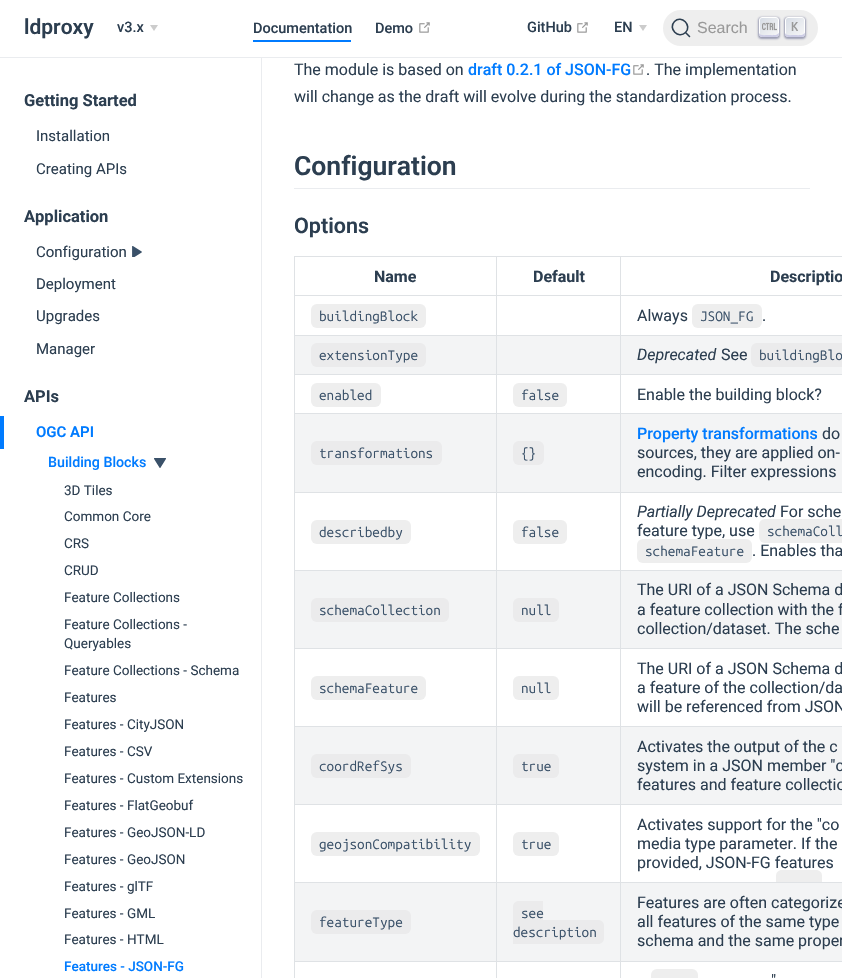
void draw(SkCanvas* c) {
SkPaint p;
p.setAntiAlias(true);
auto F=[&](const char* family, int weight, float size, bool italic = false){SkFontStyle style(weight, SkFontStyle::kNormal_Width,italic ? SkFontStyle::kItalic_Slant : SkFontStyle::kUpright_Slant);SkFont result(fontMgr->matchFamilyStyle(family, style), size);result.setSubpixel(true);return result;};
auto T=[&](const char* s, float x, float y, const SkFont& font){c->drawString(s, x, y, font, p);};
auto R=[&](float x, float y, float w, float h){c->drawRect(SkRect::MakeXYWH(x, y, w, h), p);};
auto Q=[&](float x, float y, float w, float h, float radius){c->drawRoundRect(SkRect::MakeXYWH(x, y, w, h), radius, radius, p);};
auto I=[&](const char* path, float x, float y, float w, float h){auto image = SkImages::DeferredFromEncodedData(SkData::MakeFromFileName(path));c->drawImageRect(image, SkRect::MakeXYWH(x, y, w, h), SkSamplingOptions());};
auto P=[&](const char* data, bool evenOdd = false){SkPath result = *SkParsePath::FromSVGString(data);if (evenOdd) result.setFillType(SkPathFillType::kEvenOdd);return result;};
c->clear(0xffffffff);
p.setColor(0xffeaecef);
R(0,57,842,1);
auto f1 = F("Roboto",600,21);
p.setColor(0xff2c3e50);
T("ldproxy",24,34,f1);
auto f2 = F("Roboto",500,14.5);
T("v3.x",117,32,f2);
p.setColor(0xffcccccc);
c->drawPath(P("M150 25h8l-4 6z"),p);
p.setColor(0xff007bff);
R(253,40,98,2);
p.setColor(0xff2c3e50);
T("Documentation",253,33,f2);
T("Demo",375,33,f2);
I("1.png",419,22,11,11);
T("GitHub",527,32,f2);
I("1.png",577,22,11,11);
T("EN",614,32,f2);
p.setColor(0xffcccccc);
c->drawPath(P("M639 25h8l-4 6z"),p);
p.setColor(0xffeeeeee);
Q(663,10,155,36,18);
p.setStroke(true);
p.setStrokeWidth(1.6);
p.setStrokeCap(SkPaint::kRound_Cap);
p.setStrokeJoin(SkPaint::kRound_Join);
p.setColor(0xff2c3e50);
c->drawPath(P("M685.5 32.5l4 4l-4-4c-7 7-18-4-11-11c7-7 18 4 11 11z"),p);
auto f3 = F("Liberation Sans",400,16);
p.setStroke(false);
p.setColor(0xff999999);
T("Search",697,33,f3);
p.setColor(0x661e235a);
p.setMaskFilter(SkMaskFilter::MakeBlur(kNormal_SkBlurStyle, 1));
c->drawRoundRect(SkRect::MakeXYWH(758,17,22,22),4,4,p);
p.setMaskFilter(nullptr);
{
const SkColor colors[] = {0xffd5dbe4,0xfff8f8f8};
const float stops[] = {0,1};
const SkPoint ends[] = {{759,17}, {779,37}};
p.setShader(SkGradientShader::MakeLinear(ends, colors, stops, 2, SkTileMode::kClamp));
p.setAlpha(255);
}
c->drawRoundRect(SkRect::MakeXYWH(759.5,17.5,19,19),2.5,2.5,p);
p.setStroke(true);
p.setStrokeWidth(1);
p.setStrokeCap(SkPaint::kButt_Cap);
p.setStrokeJoin(SkPaint::kMiter_Join);
p.setShader(nullptr);
p.setColor(0xffffffff);
c->drawRoundRect(SkRect::MakeXYWH(759.5,17.5,19,19),2.5,2.5,p);
p.setStroke(false);
p.setColor(0xffcdcde6);
c->drawPath(P("M779 32.5c-1 3.5-8.5 2.5-11 2.5c-2.5 0-8 1-9-2c0 4 2 4 5.5 4h9c4 0 5.5 0 5.5-4.5z"),p);
I("2.png",762,22,15,9);
p.setColor(0x661e235a);
p.setMaskFilter(SkMaskFilter::MakeBlur(kNormal_SkBlurStyle, 1));
c->drawRoundRect(SkRect::MakeXYWH(784,17,22,22),4,4,p);
p.setMaskFilter(nullptr);
{
const SkColor colors[] = {0xffd5dbe4,0xfff8f8f8};
const float stops[] = {0,1};
const SkPoint ends[] = {{785,17}, {805,37}};
p.setShader(SkGradientShader::MakeLinear(ends, colors, stops, 2, SkTileMode::kClamp));
p.setAlpha(255);
}
c->drawRoundRect(SkRect::MakeXYWH(785.5,17.5,19,19),2.5,2.5,p);
p.setStroke(true);
p.setShader(nullptr);
p.setColor(0xffffffff);
c->drawRoundRect(SkRect::MakeXYWH(785.5,17.5,19,19),2.5,2.5,p);
p.setStroke(false);
p.setColor(0xffcdcde6);
c->drawPath(P("M805 32.5c-1 3.5-8.5 2.5-11 2.5c-2.5 0-8 1-9-2c0 4 2 4 5.5 4h9c4 0 5.5 0 5.5-4.5z"),p);
auto f4 = F("Ubuntu Mono",500,13);
p.setColor(0xff999999);
T("K",791,31,f4);
p.setColor(0xffeaecef);
R(261,58,1,920);
auto f5 = F("Roboto",700,16.5);
p.setColor(0xff2c3e50);
T("Getting Started",24,106,f5);
auto f6 = F("Roboto",400,15);
T("Installation",36,141,f6);
T("Creating APIs",36,174,f6);
T("Application",24,222,f5);
T("Configuration",36,257,f6);
I("3.png",132,246,10,11);
T("Deployment",36,289,f6);
T("Upgrades",36,321,f6);
T("Manager",36,354,f6);
T("APIs",24,402,f5);
p.setColor(0xff007bff);
R(0,416,4,33);
auto f7 = F("Roboto",600,15);
T("OGC API",36,437,f7);
auto f8 = F("Roboto",500,14.25);
T("Building Blocks",48,467,f8);
I("4.png",154,458,12,10);
auto f9 = F("Roboto",400,13.5);
p.setColor(0xff2c3e50);
T("3D Tiles",64,495,f9);
T("Common Core",64,521,f9);
T("CRS",64,548,f9);
T("CRUD",64,575,f9);
T("Feature Collections",64,602,f9);
T("Feature Collections -",64,629,f9);
T("Queryables",64,648,f9);
T("Feature Collections - Schema",64,675,f9);
T("Features",64,702,f9);
T("Features - CityJSON",64,729,f9);
T("Features - CSV",64,756,f9);
T("Features - Custom Extensions",64,783,f9);
T("Features - FlatGeobuf",64,810,f9);
T("Features - GeoJSON-LD",64,837,f9);
T("Features - GeoJSON",64,864,f9);
T("Features - glTF",64,891,f9);
T("Features - GML",64,918,f9);
T("Features - HTML",64,944,f9);
auto f10 = F("Roboto",500,13.5);
p.setColor(0xff007bff);
T("Features - JSON-FG",64,971,f10);
auto f11 = F("Roboto",400,16);
p.setColor(0xff2c3e50);
T("The module is based on",294,75,f11);
auto f12 = F("Roboto",500,16);
p.setColor(0xff007bff);
T("draft 0.2.1 of JSON-FG",468,75,f12);
I("1.png",633,64,11,11);
p.setColor(0xff2c3e50);
T(". The implementation",646,75,f11);
T("will change as the draft will evolve during the standardization process.",294,102,f11);
p.setColor(0xffeaecef);
R(294,188,516,1);
auto f13 = F("Roboto",600,26.5);
p.setColor(0xff2c3e50);
T("Configuration",294,175,f13);
auto f14 = F("Roboto",600,21.5);
T("Options",294,233,f14);
p.setColor(0xffdfe2e5);
R(294,256,548,1);
auto f15 = F("Roboto",700,16);
p.setColor(0xff2c3e50);
T("Name",374,282,f15);
T("Default",533,282,f15);
T("Descriptio",770,282,f15);
p.setColor(0xffdfe2e5);
R(294,295,548,1);
p.setColor(0xffeeeeee);
Q(311,304,115,24,6);
auto f16 = F("Ubuntu Mono",400,13.6);
p.setColor(0xff3a5169);
T("buildingBlock",319,321,f16);
p.setColor(0xff2c3e50);
T("Always",637,321,f11);
p.setColor(0xffeeeeee);
Q(692,304,70,24,6);
p.setColor(0xff3a5169);
T("JSON_FG",700,321,f16);
p.setColor(0xff2c3e50);
T(".",762,321,f11);
p.setColor(0xfff3f4f5);
R(295,336,547,38);
p.setColor(0xffdfe2e5);
R(294,335,548,1);
p.setColor(0xffebebec);
Q(311,343,115,24,6);
p.setColor(0xff3a5169);
T("extensionType",319,360,f16);
auto f17 = F("Roboto",400,16,true);
p.setColor(0xff2c3e50);
T("Deprecated",637,360,f17);
T("See",721,360,f11);
p.setColor(0xffebebec);
Q(751,343,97,24,6);
p.setColor(0xff3a5169);
T("buildingBlo",759,360,f16);
p.setColor(0xffdfe2e5);
R(294,374,548,1);
p.setColor(0xffeeeeee);
Q(311,383,70,24,6);
p.setColor(0xff3a5169);
T("enabled",319,400,f16);
p.setColor(0xffeeeeee);
Q(513,383,54,24,6);
p.setColor(0xff3a5169);
T("false",521,400,f16);
p.setColor(0xff2c3e50);
T("Enable the building block?",637,400,f11);
p.setColor(0xfff3f4f5);
R(295,414,547,78);
p.setColor(0xffdfe2e5);
R(294,413,548,1);
p.setColor(0xffebebec);
Q(311,441,131,24,6);
p.setColor(0xff3a5169);
T("transformations",319,458,f16);
p.setColor(0xffebebec);
Q(513,441,31,24,6);
p.setColor(0xff3a5169);
T("{}",521,458,f16);
p.setColor(0xff007bff);
T("Property transformations",637,439,f12);
p.setColor(0xff2c3e50);
T("do",822,439,f11);
T("sources, they are applied on-",637,458,f11);
T("encoding. Filter expressions",637,477,f11);
p.setColor(0xffdfe2e5);
R(294,492,548,1);
p.setColor(0xffeeeeee);
Q(311,520,100,24,6);
p.setColor(0xff3a5169);
T("describedby",319,537,f16);
p.setColor(0xffeeeeee);
Q(513,520,54,24,6);
p.setColor(0xff3a5169);
T("false",521,537,f16);
p.setColor(0xff2c3e50);
T("Partially Deprecated",637,517,f17);
T("For sche",780,517,f11);
T("feature type, use",637,536,f11);
p.setColor(0xffeeeeee);
Q(759,519,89,24,6);
p.setColor(0xff3a5169);
T("schemaColl",767,536,f16);
p.setColor(0xffeeeeee);
Q(637,539,115,24,6);
p.setColor(0xff3a5169);
T("schemaFeature",645,556,f16);
p.setColor(0xff2c3e50);
T(". Enables tha",752,556,f11);
p.setColor(0xfff3f4f5);
R(295,571,547,77);
p.setColor(0xffdfe2e5);
R(294,570,548,1);
p.setColor(0xffebebec);
Q(311,598,138,24,6);
p.setColor(0xff3a5169);
T("schemaCollection",319,615,f16);
p.setColor(0xffebebec);
Q(513,598,46,24,6);
p.setColor(0xff3a5169);
T("null",521,615,f16);
p.setColor(0xff2c3e50);
T("The URI of a JSON Schema d",637,595,f11);
T("a feature collection with the f",637,615,f11);
T("collection/dataset. The sche",637,634,f11);
p.setColor(0xffdfe2e5);
R(294,648,548,1);
p.setColor(0xffeeeeee);
Q(311,676,115,24,6);
p.setColor(0xff3a5169);
T("schemaFeature",319,693,f16);
p.setColor(0xffeeeeee);
Q(513,676,46,24,6);
p.setColor(0xff3a5169);
T("null",521,693,f16);
p.setColor(0xff2c3e50);
T("The URI of a JSON Schema d",637,674,f11);
T("a feature of the collection/da",637,693,f11);
T("will be referenced from JSON",637,712,f11);
p.setColor(0xfff3f4f5);
R(295,727,547,77);
p.setColor(0xffdfe2e5);
R(294,726,548,1);
p.setColor(0xffebebec);
Q(311,754,100,24,6);
p.setColor(0xff3a5169);
T("coordRefSys",319,771,f16);
p.setColor(0xffebebec);
Q(513,754,46,24,6);
p.setColor(0xff3a5169);
T("true",521,771,f16);
p.setColor(0xff2c3e50);
T("Activates the output of the c",637,752,f11);
T("system in a JSON member \"c",637,771,f11);
T("features and feature collectio",637,790,f11);
p.setColor(0xffdfe2e5);
R(294,804,548,1);
p.setColor(0xffeeeeee);
Q(311,832,169,24,6);
p.setColor(0xff3a5169);
T("geojsonCompatibility",319,849,f16);
p.setColor(0xffeeeeee);
Q(513,832,46,24,6);
p.setColor(0xff3a5169);
T("true",521,849,f16);
p.setColor(0xff2c3e50);
T("Activates support for the \"co",637,830,f11);
T("media type parameter. If the",637,849,f11);
T("provided, JSON-FG features",637,868,f11);
p.setColor(0xffeeeeee);
c->drawPath(P("M782 870h34c3.5 0 6 2.5 6 6v6h-46v-6c0-3.5 2.5-6 6-6z"),p);
p.setColor(0xfff3f4f5);
R(295,883,547,78);
p.setColor(0xffdfe2e5);
R(294,882,548,1);
p.setColor(0xffebebec);
Q(311,910,100,24,6);
p.setColor(0xff3a5169);
T("featureType",319,927,f16);
p.setColor(0xffebebec);
c->drawPath(P("M519 901h24v24h-24c-3.5 0-6-2.5-6-6v-12c0-3.5 2.5-6 6-6z"),p);
p.setColor(0xff3a5169);
T("see",521,918,f16);
p.setColor(0xffebebec);
c->drawPath(P("M513 920h85c3.5 0 6 2.5 6 6v12c0 3.5-2.5 6-6 6h-85z"),p);
p.setColor(0xff3a5169);
T("description",513,937,f16);
p.setColor(0xff2c3e50);
T("Features are often categorize",637,908,f11);
T("all features of the same type",637,927,f11);
T("schema and the same proper",637,946,f11);
p.setColor(0xffdfe2e5);
R(294,961,548,1);
R(294,256,1,722);
R(496,256,1,722);
R(620,256,1,722);
p.setColor(0xffeeeeee);
Q(651,969,47,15,6);
p.setColor(0xff2c3e50);
T("\"",771,986,f11);
}
